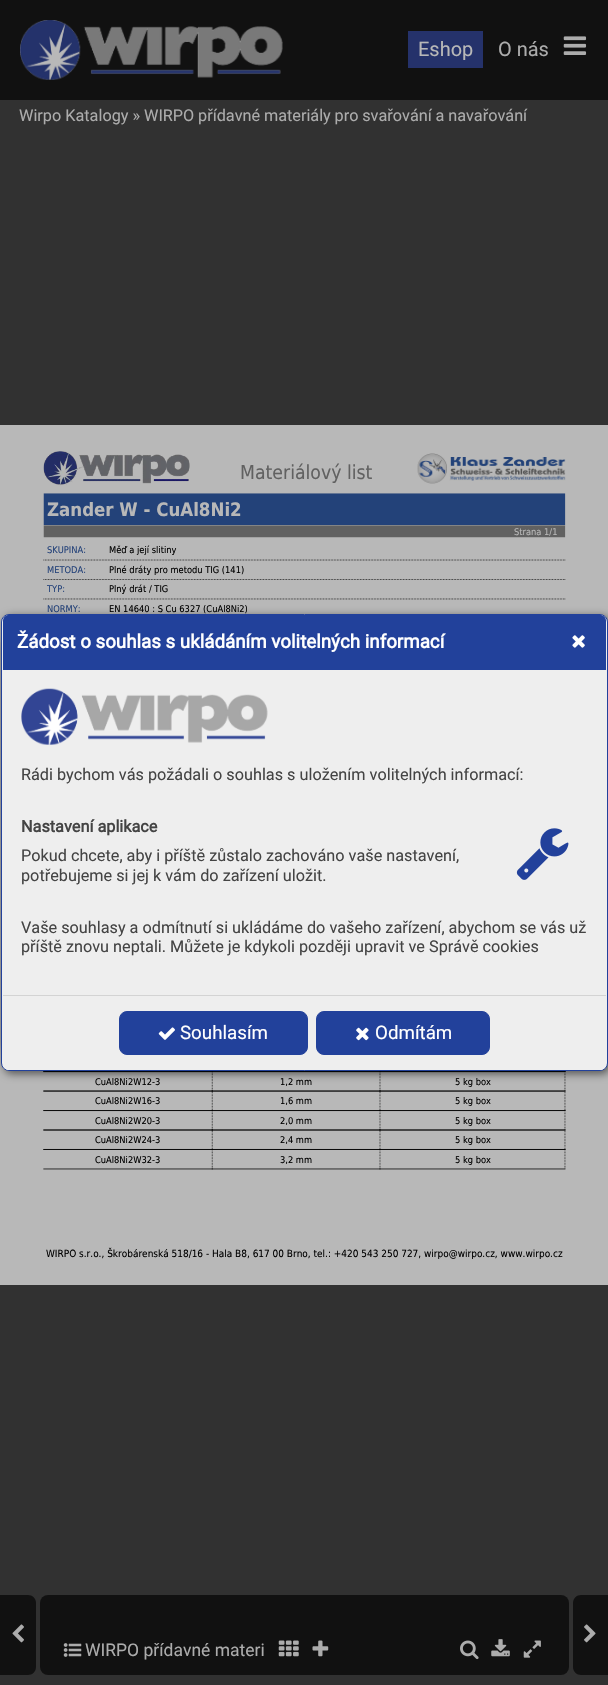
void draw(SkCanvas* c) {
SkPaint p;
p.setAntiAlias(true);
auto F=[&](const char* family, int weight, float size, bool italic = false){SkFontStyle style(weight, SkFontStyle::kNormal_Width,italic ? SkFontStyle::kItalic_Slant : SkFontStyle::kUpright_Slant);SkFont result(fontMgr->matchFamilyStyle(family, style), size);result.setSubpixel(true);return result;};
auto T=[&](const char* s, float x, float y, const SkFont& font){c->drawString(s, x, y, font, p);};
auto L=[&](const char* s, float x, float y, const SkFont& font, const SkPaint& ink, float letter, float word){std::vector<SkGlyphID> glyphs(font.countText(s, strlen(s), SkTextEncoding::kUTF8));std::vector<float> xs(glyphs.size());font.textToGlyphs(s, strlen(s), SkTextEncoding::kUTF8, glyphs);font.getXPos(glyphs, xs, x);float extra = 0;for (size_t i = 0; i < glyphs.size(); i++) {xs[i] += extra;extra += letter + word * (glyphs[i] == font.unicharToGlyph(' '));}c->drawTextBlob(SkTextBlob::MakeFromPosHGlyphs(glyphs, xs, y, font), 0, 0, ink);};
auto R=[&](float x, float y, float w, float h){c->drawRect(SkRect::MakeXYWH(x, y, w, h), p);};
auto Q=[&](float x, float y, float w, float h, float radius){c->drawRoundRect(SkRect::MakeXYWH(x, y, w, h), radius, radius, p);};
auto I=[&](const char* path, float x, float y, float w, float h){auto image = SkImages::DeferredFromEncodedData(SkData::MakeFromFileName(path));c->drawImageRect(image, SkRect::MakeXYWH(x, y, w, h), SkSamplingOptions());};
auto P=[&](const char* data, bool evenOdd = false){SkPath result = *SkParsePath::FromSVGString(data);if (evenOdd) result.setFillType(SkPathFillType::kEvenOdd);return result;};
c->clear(0xff313131);
p.setColor(0xff111111);
R(0,0,608,100);
I("1.png",20,20,263,60);
p.setColor(0xff25326b);
R(408,31,75,37);
auto f1 = F("Roboto",400,20);
p.setColor(0xffb8b8b8);
T("Eshop",418,56,f1);
p.setColor(0xffacacac);
T("O nás",498,56,f1);
I("2.png",563,36,24,19);
auto f2 = F("Roboto",400,16.25);
T("Wirpo Katalogy »",19,121,f2);
L("WIRPO přídavné materiály pro svařování a navařování",144,121,f2,p,0,-.25);
p.setColor(0xff111111);
c->drawPath(P("M0 1595h28c4.5 0 8 3.5 8 8v64c0 4.5-3.5 8-8 8h-28z"),p);
I("3.png",12,1624,12,19);
Q(40,1595,529,80,8);
I("4.png",63,1643,19,14);
auto f3 = F("Roboto",400,17.5);
p.setColor(0xffacacac);
T("WIRPO přídavné materi",85,1656,f3);
I("5.png",278,1640,21,17);
I("6.png",312,1640,17,17);
I("7.png",460,1640,19,20);
I("8.png",491,1639,19,18);
I("9.png",523,1640,18,18);
p.setColor(0xff111111);
c->drawPath(P("M581 1595h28v80h-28c-4.5 0-8-3.5-8-8v-64c0-4.5 3.5-8 8-8z"),p);
I("10.png",584,1624,12,19);
p.setColor(0xffb8b8b8);
R(0,425,608,860);
I("11.png",43,451,523,719);
auto f4 = F("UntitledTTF",400,19.25);
p.setColor(0xff616161);
T("Materiálový list",240,479,f4);
auto f5 = F("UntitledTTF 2",400,18.5);
p.setColor(0xffb8b8b8);
T("Zander W - CuAl8Ni2",47,516,f5);
auto f6 = F("UntitledTTF",400,9.25);
T("Strana 1/1",514,535,f6);
p.setColor(0xff244279);
T("SKUPINA:",47,553,f6);
p.setColor(0xff000000);
T("Měď a její slitiny",109,553,f6);
p.setColor(0xff244279);
T("METODA:",47,573,f6);
p.setColor(0xff000000);
T("Plné dráty pro metodu TIG (141)",109,573,f6);
p.setColor(0xff244279);
T("TYP:",47,592,f6);
p.setColor(0xff000000);
T("Plný drát / TIG",109,592,f6);
p.setColor(0xff244279);
T("NORMY:",47,612,f6);
p.setColor(0xff000000);
T("EN 14640 : S Cu 6327 (CuAl8Ni2)",109,612,f6);
T("CuAl8Ni2W12-3",95,1085,f6);
T("1,2 mm",280,1085,f6);
T("5 kg box",455,1085,f6);
T("CuAl8Ni2W16-3",95,1104,f6);
T("1,6 mm",280,1104,f6);
T("5 kg box",455,1104,f6);
T("CuAl8Ni2W20-3",95,1124,f6);
T("2,0 mm",280,1124,f6);
T("5 kg box",455,1124,f6);
T("CuAl8Ni2W24-3",95,1143,f6);
T("2,4 mm",280,1143,f6);
T("5 kg box",455,1143,f6);
T("CuAl8Ni2W32-3",95,1163,f6);
T("3,2 mm",280,1163,f6);
T("5 kg box",455,1163,f6);
auto f7 = F("UntitledTTF",400,9.97);
T("WIRPO s.r.o., Škrobárenská 518/16 - Hala B8, 617 00 Brno, tel.: +420 543 250 727, wirpo@wirpo.cz, www.wirpo.cz",46,1257,f7);
p.setColor(0x87000000);
p.setMaskFilter(SkMaskFilter::MakeBlur(kNormal_SkBlurStyle, 4.5));
c->drawRoundRect(SkRect::MakeXYWH(4,639,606,412),8,8,p);
p.setMaskFilter(nullptr);
p.setMaskFilter(SkMaskFilter::MakeBlur(kNormal_SkBlurStyle, 4.5));
c->drawRoundRect(SkRect::MakeXYWH(4,616,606,458),8,8,p);
p.setMaskFilter(nullptr);
p.setColor(0xffeeeeee);
c->drawRoundRect(SkRect::MakeXYWH(1.5,614.5,606,456),7.5,7.5,p);
p.setStroke(true);
p.setStrokeWidth(1);
p.setColor(0xff22419b);
c->drawRoundRect(SkRect::MakeXYWH(1.5,614.5,606,456),7.5,7.5,p);
p.setStroke(false);
c->drawPath(P("M9 615h591c3.5 0 6 2.5 6 6v49h-603v-49c0-3.5 2.5-6 6-6z"),p);
auto f8 = F("Roboto",700,18.75);
p.setColor(0xffffffff);
T("Žádost o souhlas s ukládáním volitelných informací",17,648,f8);
I("12.png",572,635,13,13);
I("13.png",21,688,247,57);
p.setColor(0xff444444);
T("Rádi bychom vás požádali o souhlas s uložením volitelných informací:",21,780,f2);
auto f9 = F("Roboto",700,16.25);
T("Nastavení aplikace",21,832,f9);
I("14.png",516,828,53,52);
T("Pokud chcete, aby i příště zůstalo zachováno vaše nastavení,",21,861,f2);
T("potřebujeme si jej k vám do zařízení uložit.",21,881,f2);
T("Vaše souhlasy a odmítnutí si ukládáme do vašeho zařízení, abychom se vás už",21,933,f2);
T("příště znovu neptali. Můžete je kdykoli později upravit ve Správě cookies",21,952,f2);
p.setColor(0xffeeeeee);
c->drawPath(P("M3 995h603v69c0 3.5-2.5 6-6 6h-591c-3.5 0-6-2.5-6-6z"),p);
p.setColor(0xffd3d3d3);
R(3,995,603,1);
p.setColor(0xff22419b);
c->drawRoundRect(SkRect::MakeXYWH(119.5,1011.5,188,43),7.5,7.5,p);
p.setStroke(true);
c->drawRoundRect(SkRect::MakeXYWH(119.5,1011.5,188,43),7.5,7.5,p);
I("15.png",158,1027,17,13);
auto f10 = F("Roboto",400,18.75);
p.setStroke(false);
p.setColor(0xffffffff);
T("Souhlasím",180,1039,f10);
p.setColor(0xff22419b);
c->drawRoundRect(SkRect::MakeXYWH(316.5,1011.5,173,43),7.5,7.5,p);
p.setStroke(true);
c->drawRoundRect(SkRect::MakeXYWH(316.5,1011.5,173,43),7.5,7.5,p);
I("16.png",356,1027,13,14);
p.setStroke(false);
p.setColor(0xffffffff);
T("Odmítám",375,1039,f10);
}
